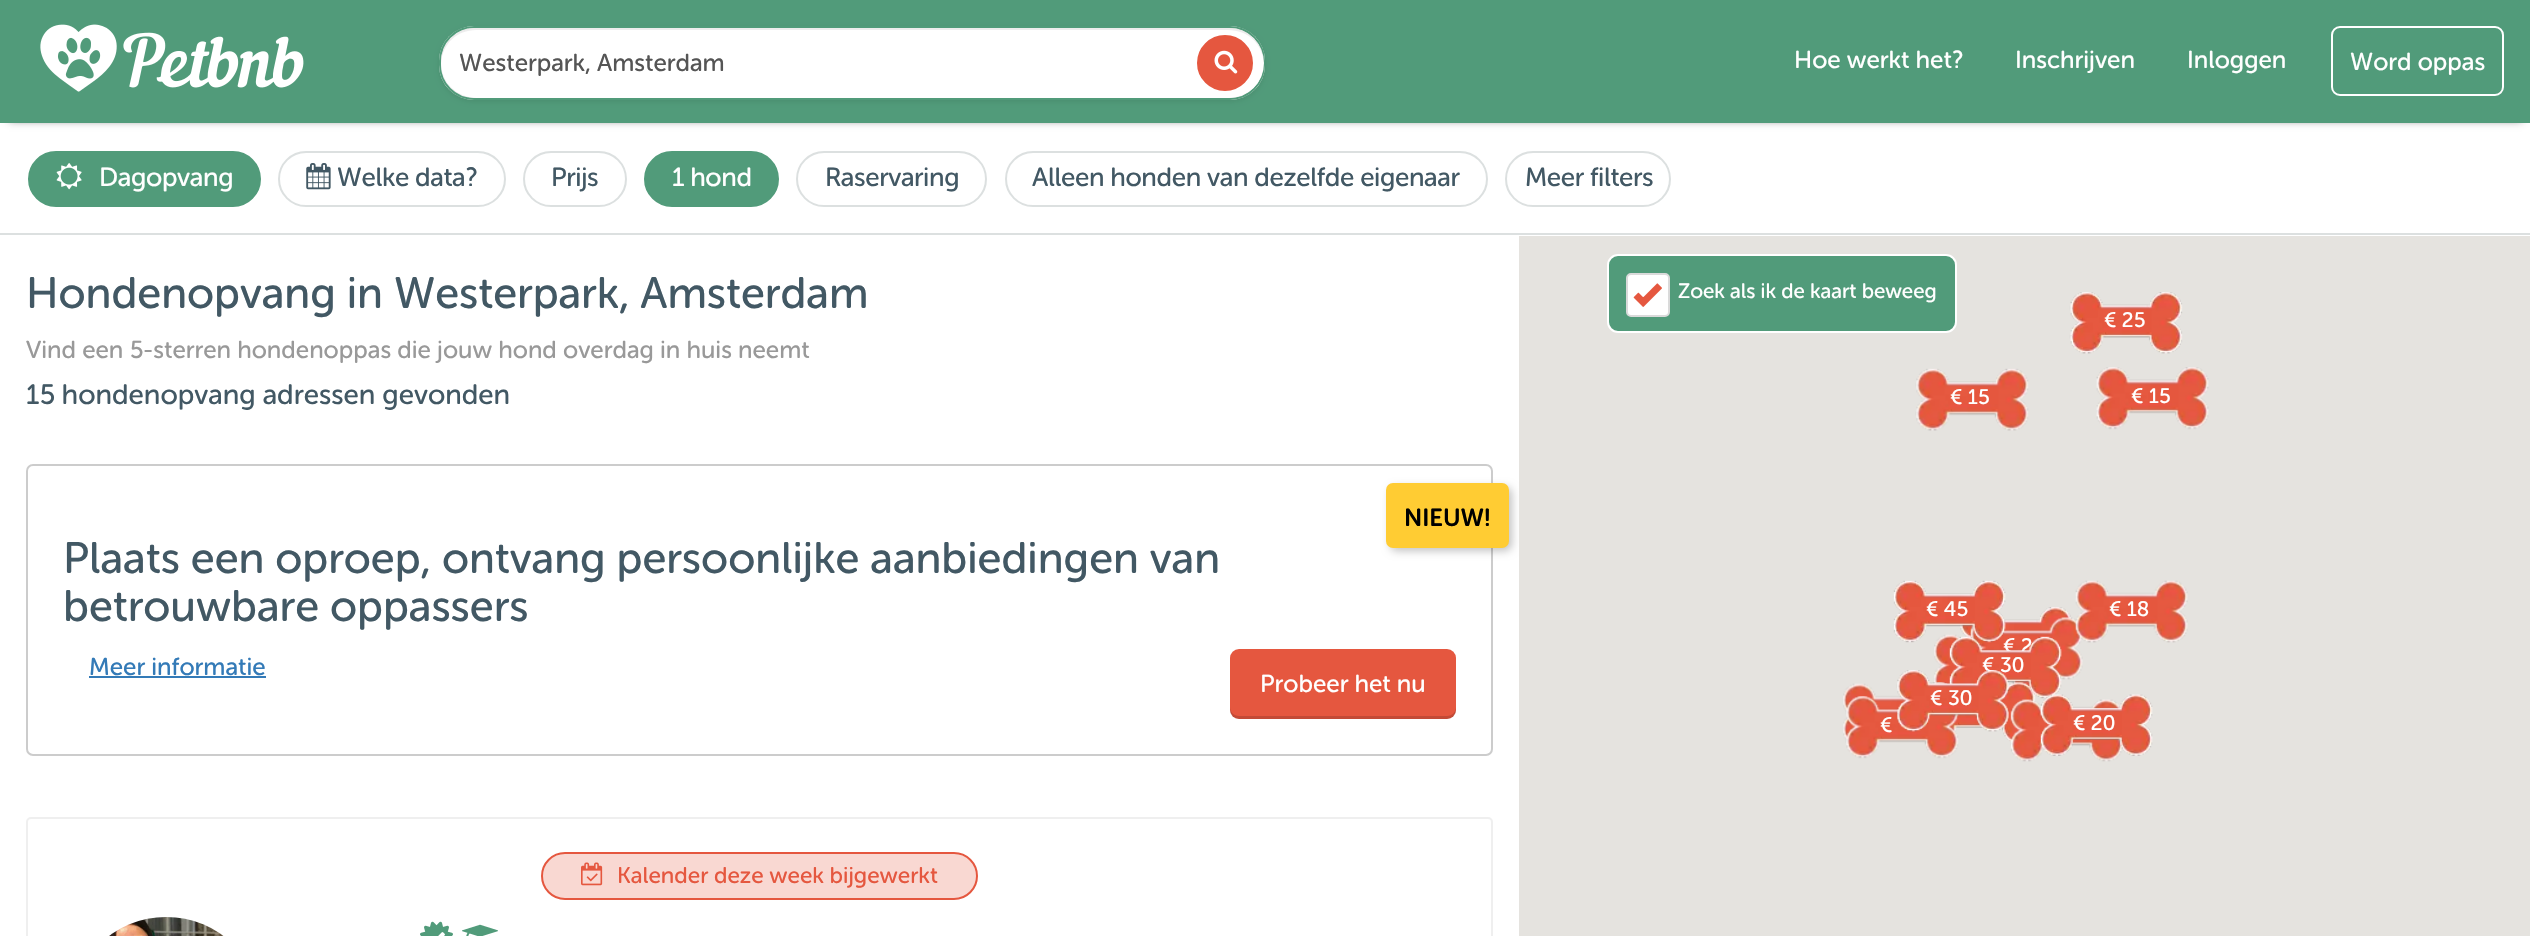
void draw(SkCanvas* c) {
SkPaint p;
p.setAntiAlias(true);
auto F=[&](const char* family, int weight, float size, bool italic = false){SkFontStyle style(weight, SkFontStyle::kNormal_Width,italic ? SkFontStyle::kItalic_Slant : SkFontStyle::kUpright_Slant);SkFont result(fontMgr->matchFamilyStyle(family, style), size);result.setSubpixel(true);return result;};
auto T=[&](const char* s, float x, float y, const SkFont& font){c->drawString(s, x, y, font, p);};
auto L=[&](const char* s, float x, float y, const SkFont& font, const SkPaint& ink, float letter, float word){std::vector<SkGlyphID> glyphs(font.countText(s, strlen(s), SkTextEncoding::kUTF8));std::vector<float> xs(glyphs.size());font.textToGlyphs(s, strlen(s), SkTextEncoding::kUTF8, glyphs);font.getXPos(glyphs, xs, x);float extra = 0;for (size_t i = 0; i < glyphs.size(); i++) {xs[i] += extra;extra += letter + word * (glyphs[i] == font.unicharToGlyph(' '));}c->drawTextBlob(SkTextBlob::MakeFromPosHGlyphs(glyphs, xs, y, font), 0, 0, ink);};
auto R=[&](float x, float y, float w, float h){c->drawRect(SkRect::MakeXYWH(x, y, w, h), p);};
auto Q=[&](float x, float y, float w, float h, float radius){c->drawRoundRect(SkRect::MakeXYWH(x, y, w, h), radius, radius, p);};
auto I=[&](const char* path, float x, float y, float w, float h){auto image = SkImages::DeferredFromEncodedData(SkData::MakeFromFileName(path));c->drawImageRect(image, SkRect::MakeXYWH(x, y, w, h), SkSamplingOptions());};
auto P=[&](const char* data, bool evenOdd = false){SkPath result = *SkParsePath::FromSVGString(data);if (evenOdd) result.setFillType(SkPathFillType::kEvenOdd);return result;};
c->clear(0xffffffff);
p.setColor(0xbf000000);
p.setMaskFilter(SkMaskFilter::MakeBlur(kNormal_SkBlurStyle, 4.5));
c->drawRect(SkRect::MakeXYWH(9,14,2513,105),p);
p.setMaskFilter(nullptr);
p.setColor(0xff519b7a);
R(0,0,2530,123);
I("1.png",40,24,264,68);
p.setColor(0xffffffff);
Q(439,26,826,74,35);
p.setColor(0x14000000);
p.setMaskFilter(SkMaskFilter::MakeBlur(kNormal_SkBlurStyle, 2.5));
c->drawRoundRect(SkRect::MakeXYWH(439,28,826,74),35,35,p);
p.setMaskFilter(nullptr);
p.setStroke(true);
p.setStrokeWidth(2);
p.setColor(0xff519b7a);
c->drawRoundRect(SkRect::MakeXYWH(440,27,824,72),34,34,p);
p.setStroke(false);
p.setColor(0xffffffff);
Q(441,28,823,70,35);
p.setColor(0x12000000);
c->drawPath(P("M476 30h752c20 0 35 14 36 34c1-20-16-36-35-36h-753c-19 0-36 16-35 36c1-20 16-34 35-34z"),p);
auto f1 = F("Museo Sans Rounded",400,24.5);
p.setColor(0xff555555);
T("Westerpark, Amsterdam",459,71,f1);
p.setColor(0xffe5573f);
c->drawCircle(1225,63,27,p);
p.setStroke(true);
c->drawCircle(1225,63,27,p);
I("2.png",1214,50,24,24);
p.setStroke(false);
p.setColor(0xffffffff);
T("Hoe werkt het?",1794,68,f1);
T("Inschrijven",2015,68,f1);
T("Inloggen",2187,68,f1);
p.setStroke(true);
c->drawRoundRect(SkRect::MakeXYWH(2332,27,171,68),8,8,p);
p.setStroke(false);
T("Word oppas",2350,70,f1);
p.setColor(0xffdce0e0);
R(0,233,2530,2);
p.setColor(0xff519b7a);
c->drawRoundRect(SkRect::MakeXYWH(29,152,231,54),27,27,p);
p.setStroke(true);
c->drawRoundRect(SkRect::MakeXYWH(29,152,231,54),27,27,p);
I("3.png",56,163,26,27);
auto f2 = F("Museo Sans Rounded",400,26.25);
p.setStroke(false);
p.setColor(0xffffffff);
L("Dagopvang",99,186,f2,p,-.35,0);
p.setStroke(true);
p.setColor(0xffdce0e0);
c->drawRoundRect(SkRect::MakeXYWH(279,152,226,54),27,27,p);
I("4.png",306,163,25,27);
p.setStroke(false);
p.setColor(0xff425864);
L("Welke data?",337,186,f2,p,-.35,0);
p.setStroke(true);
p.setColor(0xffdce0e0);
c->drawRoundRect(SkRect::MakeXYWH(524,152,102,54),27,27,p);
p.setStroke(false);
p.setColor(0xff425864);
L("Prijs",551,186,f2,p,-.35,0);
p.setColor(0xff519b7a);
c->drawRoundRect(SkRect::MakeXYWH(645,152,133,54),27,27,p);
p.setStroke(true);
c->drawRoundRect(SkRect::MakeXYWH(645,152,133,54),27,27,p);
p.setStroke(false);
p.setColor(0xffffffff);
L("1 hond",672,186,f2,p,-.35,0);
p.setStroke(true);
p.setColor(0xffdce0e0);
c->drawRoundRect(SkRect::MakeXYWH(797,152,189,54),27,27,p);
p.setStroke(false);
p.setColor(0xff425864);
L("Raservaring",825,186,f2,p,-.35,0);
p.setStroke(true);
p.setColor(0xffdce0e0);
c->drawRoundRect(SkRect::MakeXYWH(1006,152,481,54),27,27,p);
p.setStroke(false);
p.setColor(0xff425864);
L("Alleen honden van dezelfde eigenaar",1032,186,f2,p,-.35,0);
p.setStroke(true);
p.setColor(0xffdce0e0);
c->drawRoundRect(SkRect::MakeXYWH(1506,152,164,54),27,27,p);
p.setStroke(false);
p.setColor(0xff425864);
L("Meer filters",1525,186,f2,p,-.35,0);
auto f3 = F("Museo Sans Rounded",400,43.75);
T("Hondenopvang in Westerpark, Amsterdam",26,308,f3);
p.setColor(0xff999999);
T("Vind een 5-sterren hondenoppas die jouw hond overdag in huis neemt",26,358,f1);
auto f4 = F("Museo Sans Rounded",400,28);
p.setColor(0xff425864);
T("15 hondenopvang adressen gevonden",26,404,f4);
p.setStroke(true);
p.setColor(0xffcccccc);
c->drawRoundRect(SkRect::MakeXYWH(27,465,1465,290),6,6,p);
p.setStroke(false);
p.setColor(0x3d000000);
p.setMaskFilter(SkMaskFilter::MakeBlur(kNormal_SkBlurStyle, 4.5));
c->drawRoundRect(SkRect::MakeXYWH(1390,487,122,64),7,7,p);
p.setMaskFilter(nullptr);
p.setColor(0xffffcc33);
Q(1386,483,123,65,7);
auto f5 = F("Museo Sans Rounded",600,24.5);
p.setColor(0xff000000);
T("NIEUW!",1404,526,f5);
p.setColor(0xff425864);
T("Plaats een oproep, ontvang persoonlijke aanbiedingen van",63,573,f3);
T("betrouwbare oppassers",63,621,f3);
p.setColor(0xff337ab7);
T("Meer informatie",89,675,f1);
R(89,676,177,2);
p.setColor(0xffe5573f);
Q(1230,649,226,70,9);
p.setColor(0x26000000);
c->drawPath(P("M1230 707v3c0 5 4 9 9 9h208c5 0 9-4 9-9v-3c0 5-4 9-9 9h-208c-5 0-9-4-9-9z"),p);
p.setColor(0xffffffff);
T("Probeer het nu",1260,692,f1);
p.setStroke(true);
p.setColor(0xffefefef);
c->drawRoundRect(SkRect::MakeXYWH(27,818,1465,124),4,4,p);
p.setStroke(false);
p.setColor(0xfff9d8d2);
c->drawRoundRect(SkRect::MakeXYWH(542,853,435,46),23,23,p);
p.setStroke(true);
p.setColor(0xffe5573f);
c->drawRoundRect(SkRect::MakeXYWH(542,853,435,46),23,23,p);
I("5.png",581,862,22,24);
auto f6 = F("Museo Sans Rounded",400,22.75);
p.setStroke(false);
T("Kalender deze week bijgewerkt",617,883,f6);
I("6.png",109,917,115,19);
I("7.png",420,921,33,15);
I("8.png",438,932,7,4);
I("9.png",462,924,36,12);
p.setColor(0xffe5e3df);
R(1519,236,1011,700);
p.setColor(0xff519b7a);
c->drawRoundRect(SkRect::MakeXYWH(1608,255,348,77),10,10,p);
p.setStroke(true);
p.setColor(0xffffffff);
c->drawRoundRect(SkRect::MakeXYWH(1608,255,348,77),10,10,p);
p.setStroke(false);
c->drawRoundRect(SkRect::MakeXYWH(1627,274,42,42),4,4,p);
p.setStroke(true);
p.setColor(0xffdadada);
c->drawRoundRect(SkRect::MakeXYWH(1627,274,42,42),4,4,p);
I("10.png",1633,283,29,24);
auto f7 = F("Museo Sans Rounded",400,20.75);
p.setStroke(false);
p.setColor(0xffffffff);
T("Zoek als ik de kaart beweeg",1678,298,f7);
I("11.png",2069,292,114,62);
auto f8 = F("Museo Sans Rounded",400,21);
T("€ 25",2104,327,f8);
I("12.png",1915,368,114,63);
I("13.png",2096,367,113,63);
T("€ 15",1950,404,f8);
T("€ 15",2131,403,f8);
I("18.png",1934,634,105,63);
I("16.png",1959,607,113,62);
I("17.png",1970,617,113,63);
T("€ 2",2003,653,f8);
I("21.png",1843,683,112,60);
I("22.png",1930,682,106,61);
I("24.png",1845,696,114,63);
I("19.png",1949,636,113,63);
I("14.png",1893,580,113,63);
I("15.png",2075,580,113,63);
T("€ 45",1926,616,f8);
T("€ 18",2109,616,f8);
T("€ 30",1982,672,f8);
I("20.png",1896,670,113,62);
T("€ 30",1930,705,f8);
I("25.png",2010,699,113,63);
I("23.png",2040,694,113,62);
T("€",1880,732,f8);
T("€ 20",2073,730,f8);
}
